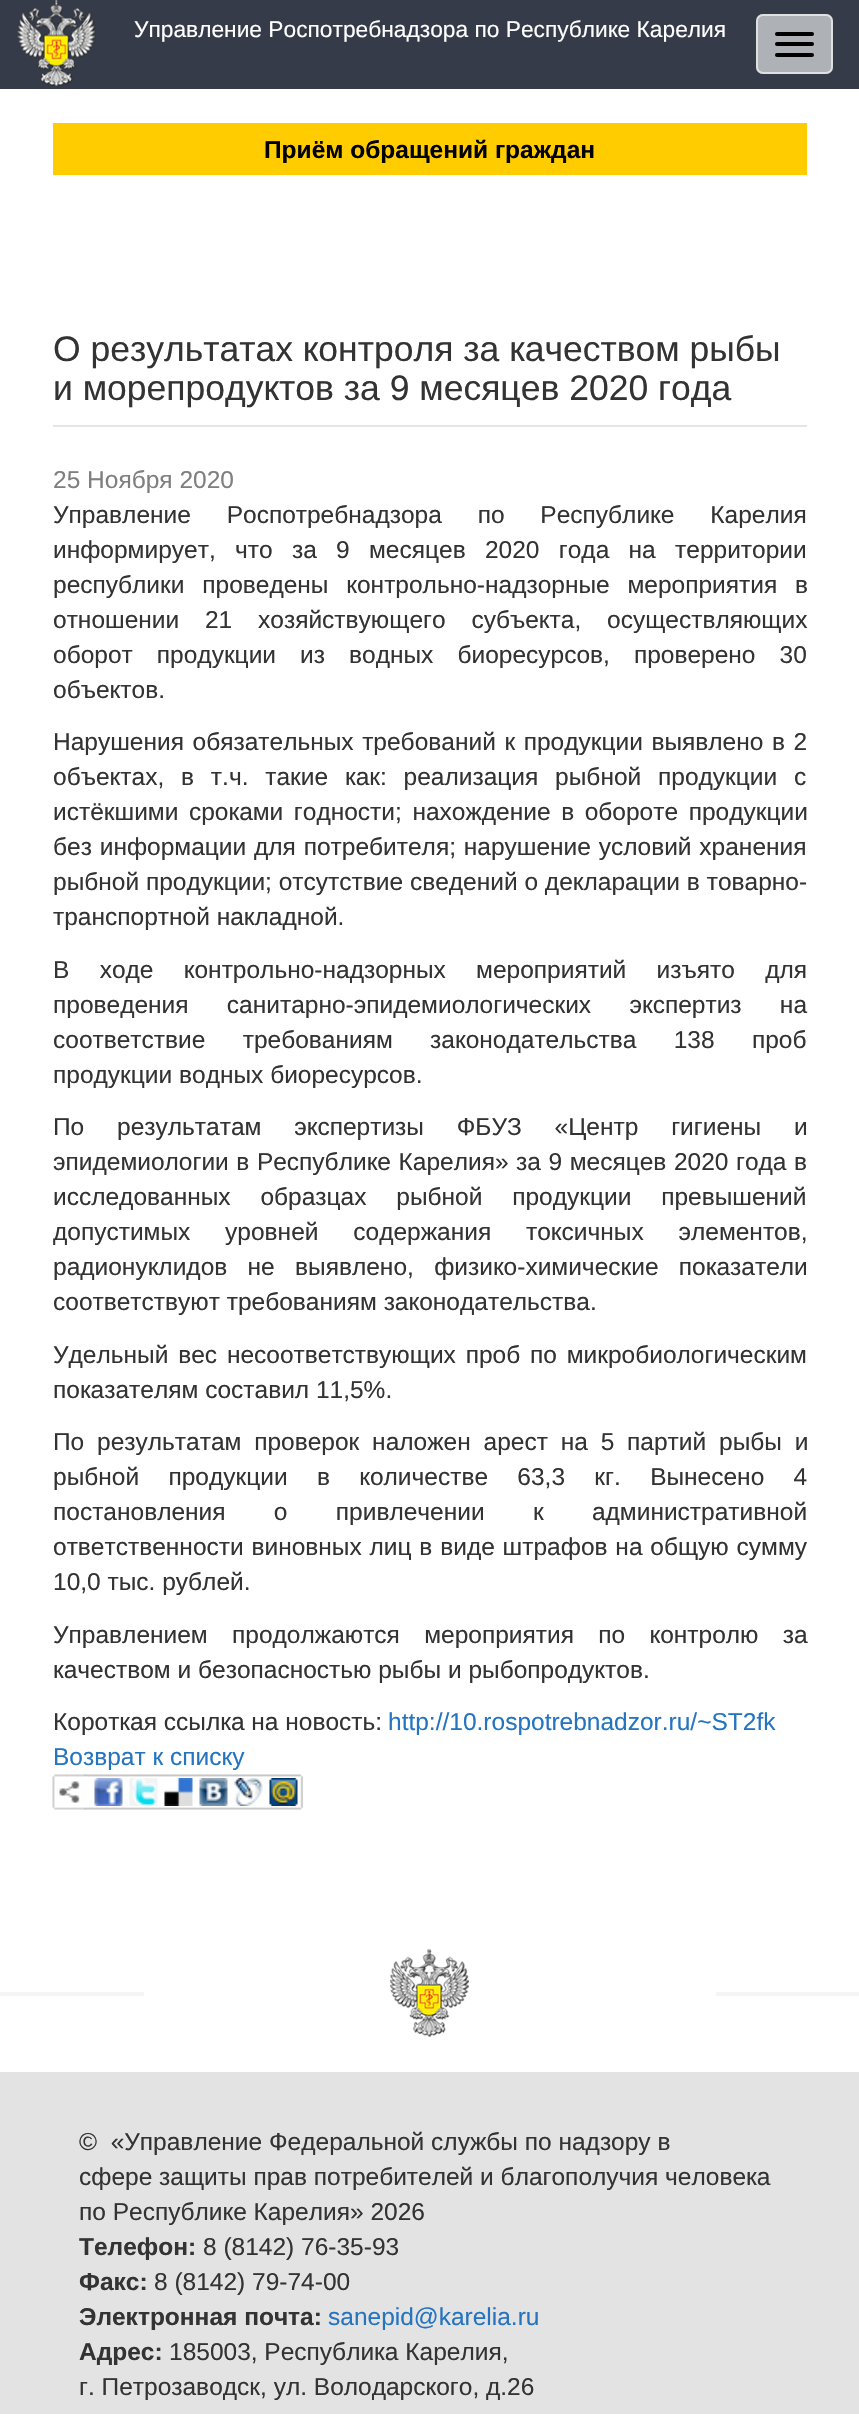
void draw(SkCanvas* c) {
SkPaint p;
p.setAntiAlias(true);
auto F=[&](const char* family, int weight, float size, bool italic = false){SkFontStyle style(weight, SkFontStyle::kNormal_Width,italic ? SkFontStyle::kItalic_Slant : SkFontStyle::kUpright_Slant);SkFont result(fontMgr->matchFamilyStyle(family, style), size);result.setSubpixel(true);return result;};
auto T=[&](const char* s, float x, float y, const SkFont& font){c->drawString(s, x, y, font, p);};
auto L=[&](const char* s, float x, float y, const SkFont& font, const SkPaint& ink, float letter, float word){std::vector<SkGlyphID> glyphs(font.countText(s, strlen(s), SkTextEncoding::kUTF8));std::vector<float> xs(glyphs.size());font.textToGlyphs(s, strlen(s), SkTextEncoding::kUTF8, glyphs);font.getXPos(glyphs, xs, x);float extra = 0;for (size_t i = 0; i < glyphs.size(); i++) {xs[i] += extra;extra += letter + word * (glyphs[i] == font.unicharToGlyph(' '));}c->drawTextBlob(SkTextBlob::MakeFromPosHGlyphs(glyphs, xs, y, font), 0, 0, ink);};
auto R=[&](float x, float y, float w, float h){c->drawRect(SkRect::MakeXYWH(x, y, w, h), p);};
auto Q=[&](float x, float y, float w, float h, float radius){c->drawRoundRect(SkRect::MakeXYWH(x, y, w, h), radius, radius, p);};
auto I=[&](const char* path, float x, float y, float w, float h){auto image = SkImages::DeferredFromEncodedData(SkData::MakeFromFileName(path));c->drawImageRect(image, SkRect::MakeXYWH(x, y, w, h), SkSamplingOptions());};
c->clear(0xffffffff);
p.setColor(0xff353b48);
R(0,0,859,89);
I("1.png",17,0,80,88);
auto f1 = F("Liberation Sans",400,22.75);
p.setColor(0xffffffff);
T("Управление Роспотребнадзора по Республике Карелия",134,37,f1);
p.setColor(0xffaeb1b6);
Q(756,14,77,60,7);
p.setStroke(true);
p.setStrokeWidth(2);
p.setColor(0x99ffffff);
c->drawRoundRect(SkRect::MakeXYWH(757,15,75,58),6,6,p);
p.setStroke(false);
p.setColor(0xff000000);
Q(775,32,39,4,2);
Q(775,42,39,4,2);
Q(775,53,39,4,2);
p.setColor(0xffffcc00);
R(53,123,754,52);
auto f2 = F("Liberation Sans",700,24.5);
p.setColor(0xff000000);
T("Приём обращений граждан",264,158,f2);
p.setColor(0xffe5e5e5);
R(53,425,754,2);
auto f3 = F("Liberation Sans",400,35.5);
p.setColor(0xff333333);
T("О результатах контроля за качеством рыбы",53,361,f3);
T("и морепродуктов за 9 месяцев 2020 года",53,400,f3);
auto f4 = F("Liberation Sans",400,24.5);
p.setColor(0xff7f7f7f);
T("25 Ноября 2020",53,488,f4);
p.setColor(0xff333333);
L("Управление Роспотребнадзора по Республике Карелия",53,523,f4,p,0,29);
L("информирует, что за 9 месяцев 2020 года на территории",53,558,f4,p,0,12.5);
L("республики проведены контрольно-надзорные мероприятия в",53,593,f4,p,0,11);
L("отношении 21 хозяйствующего субъекта, осуществляющих",53,628,f4,p,0,19);
L("оборот продукции из водных биоресурсов, проверено 30",53,663,f4,p,0,17.25);
T("объектов.",53,698,f4);
L("Нарушения обязательных требований к продукции выявлено в 2",53,750,f4,p,0,1.75);
L("объектах, в т.ч. такие как: реализация рыбной продукции с",53,785,f4,p,0,10);
L("истёкшими сроками годности; нахождение в обороте продукции",53,820,f4,p,0,3.75);
L("без информации для потребителя; нарушение условий хранения",53,855,f4,p,0,1);
T("рыбной продукции; отсутствие сведений о декларации в товарно-",53,890,f4);
T("транспортной накладной.",53,925,f4);
L("В ходе контрольно-надзорных мероприятий изъято для",53,978,f4,p,0,23.5);
L("проведения санитарно-эпидемиологических экспертиз на",53,1013,f4,p,0,31.5);
L("соответствие требованиям законодательства 138 проб",53,1048,f4,p,0,30.5);
T("продукции водных биоресурсов.",53,1083,f4);
L("По результатам экспертизы ФБУЗ «Центр гигиены и",53,1135,f4,p,0,26);
L("эпидемиологии в Республике Карелия» за 9 месяцев 2020 года в",53,1170,f4,p,0,.75);
L("исследованных образцах рыбной продукции превышений",53,1205,f4,p,0,23);
L("допустимых уровней содержания токсичных элементов,",53,1240,f4,p,0,28);
L("радионуклидов не выявлено, физико-химические показатели",53,1275,f4,p,0,13.5);
T("соответствуют требованиям законодательства.",53,1310,f4);
L("Удельный вес несоответствующих проб по микробиологическим",53,1363,f4,p,0,3);
T("показателям составил 11,5%.",53,1398,f4);
L("По результатам проверок наложен арест на 5 партий рыбы и",53,1450,f4,p,0,6);
L("рыбной продукции в количестве 63,3 кг. Вынесено 4",53,1485,f4,p,0,22.5);
L("постановления о привлечении к административной",53,1520,f4,p,0,41.5);
L("ответственности виновных лиц в виде штрафов на общую сумму",53,1555,f4,p,0,1);
T("10,0 тыс. рублей.",53,1590,f4);
L("Управлением продолжаются мероприятия по контролю за",53,1643,f4,p,0,17.5);
T("качеством и безопасностью рыбы и рыбопродуктов.",53,1678,f4);
T("Короткая ссылка на новость:",53,1730,f4);
p.setColor(0xff2474bf);
T("http://10.rospotrebnadzor.ru/~ST2fk",388,1730,f4);
T("Возврат к списку",53,1765,f4);
I("2.png",52,1774,35,36);
I("3.png",84,1774,219,36);
I("4.png",94,1778,29,28);
I("5.png",129,1778,29,28);
I("6.png",164,1778,29,28);
I("7.png",199,1778,29,28);
I("8.png",234,1778,29,28);
I("9.png",269,1778,29,28);
p.setColor(0xffe3e3e3);
R(0,2072,859,342);
p.setColor(0xfff5f5f5);
R(0,1992,144,4);
I("10.png",390,1949,79,88);
R(716,1992,143,4);
p.setColor(0xff333333);
T("©  «Управление Федеральной службы по надзору в",79,2150,f4);
T("сфере защиты прав потребителей и благополучия человека",79,2185,f4);
T("по Республике Карелия» 2026",79,2220,f4);
T("Телефон:",79,2255,f2);
T("8 (8142) 76-35-93",203,2255,f4);
T("Факс:",79,2290,f2);
T("8 (8142) 79-74-00",154,2290,f4);
T("Электронная почта:",79,2325,f2);
p.setColor(0xff2474bf);
T("sanepid@karelia.ru",328,2325,f4);
p.setColor(0xff333333);
T("Адрес:",79,2360,f2);
T("185003, Республика Карелия,",169,2360,f4);
T("г. Петрозаводск, ул. Володарского, д.26",79,2395,f4);
}
